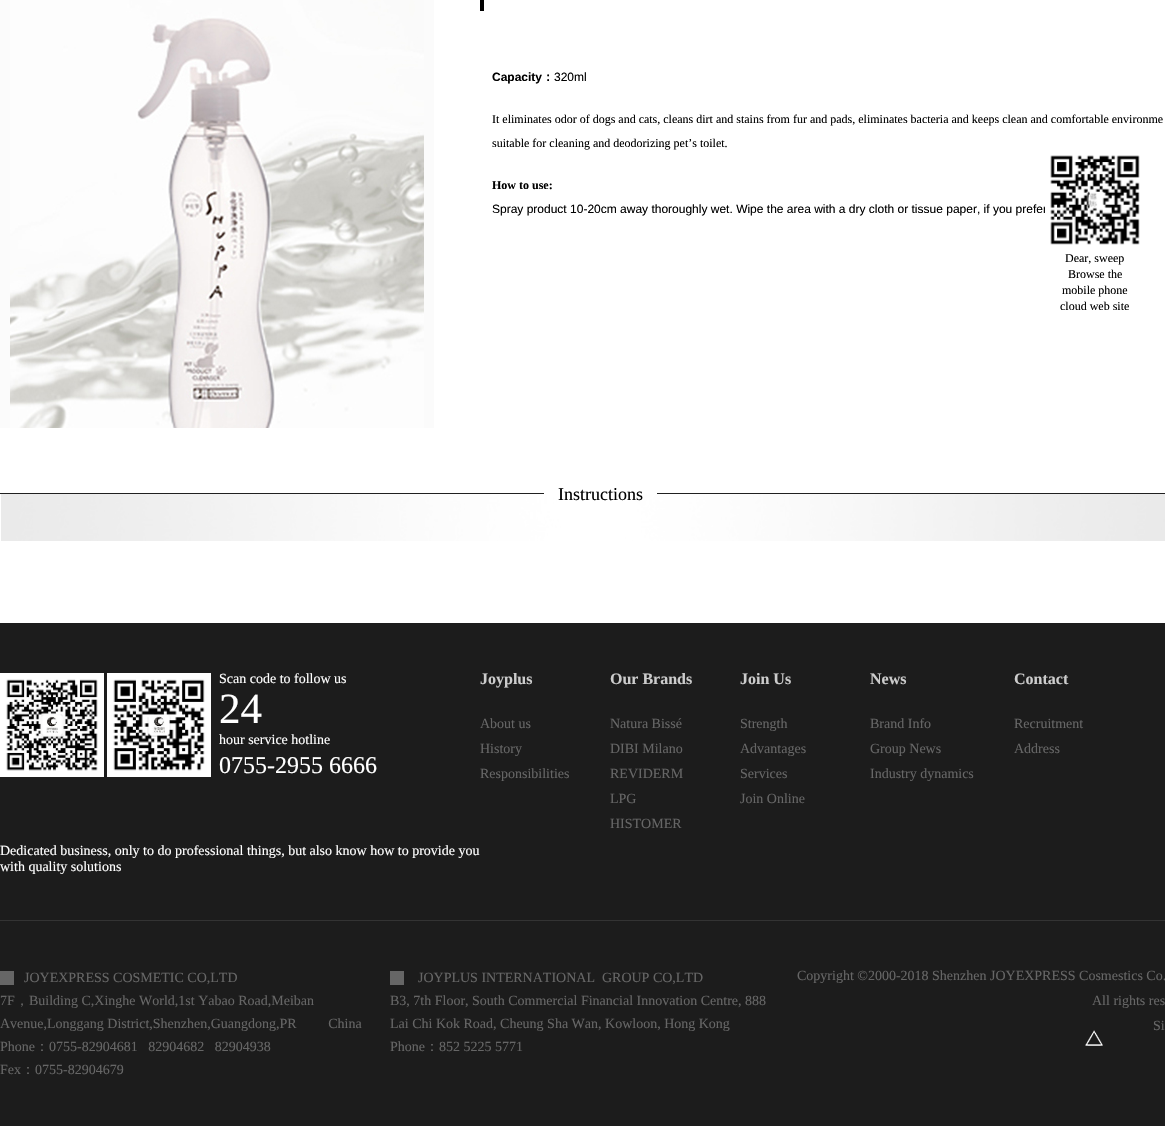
void draw(SkCanvas* c) {
SkPaint p;
p.setAntiAlias(true);
auto F=[&](const char* family, int weight, float size, bool italic = false){SkFontStyle style(weight, SkFontStyle::kNormal_Width,italic ? SkFontStyle::kItalic_Slant : SkFontStyle::kUpright_Slant);SkFont result(fontMgr->matchFamilyStyle(family, style), size);result.setSubpixel(true);return result;};
auto T=[&](const char* s, float x, float y, const SkFont& font){c->drawString(s, x, y, font, p);};
auto R=[&](float x, float y, float w, float h){c->drawRect(SkRect::MakeXYWH(x, y, w, h), p);};
auto I=[&](const char* path, float x, float y, float w, float h){auto image = SkImages::DeferredFromEncodedData(SkData::MakeFromFileName(path));c->drawImageRect(image, SkRect::MakeXYWH(x, y, w, h), SkSamplingOptions());};
c->clear(0xffffffff);
p.setStroke(true);
p.setStrokeWidth(10);
p.setColor(0xfffbfbfb);
c->drawRect(SkRect::MakeXYWH(5,-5,424,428),p);
I("1.png",10,0,414,428);
p.setStroke(false);
p.setColor(0xff000000);
R(480,0,4,11);
auto f1 = F("Liberation Sans",700,12);
T("Capacity",492,81,f1);
auto f2 = F("WenQuanYi Zen Hei",700,12);
T("：",542,81,f2);
auto f3 = F("Liberation Sans",400,12);
T("320ml",554,81,f3);
auto f4 = F("Liberation Serif",400,12);
T("It eliminates odor of dogs and cats, cleans dirt and stains from fur and pads, eliminates bacteria and keeps clean and comfortable environme",492,123,f4);
T("suitable for cleaning and deodorizing pet’s toilet.",492,147,f4);
auto f5 = F("Liberation Serif",700,12);
T("How to use:",492,189,f5);
T("Spray product 10-20cm away thoroughly wet. Wipe the area with a dry cloth or tissue paper, if you prefer",492,213,f3);
I("2.png",1,494,1164,47);
p.setColor(0xff202020);
R(0,493,1165,1);
p.setColor(0xffffffff);
R(544,493,113,1);
auto f6 = F("Liberation Serif",400,18);
p.setColor(0xff000000);
T("Instructions",558,500,f6);
p.setColor(0xff1c1c1c);
R(0,623,1165,503);
I("3.png",1085,1030,18,16);
I("4.png",1045,155,95,90);
p.setColor(0xff000000);
T("Dear, sweep",1065,262,f4);
T("Browse the",1068,278,f4);
T("mobile phone",1062,294,f4);
T("cloud web site",1060,310,f4);
p.setColor(0xff333333);
R(0,920,1165,1);
I("5.png",0,673,104,104);
I("6.png",107,673,104,104);
auto f7 = F("Liberation Serif",400,14);
p.setColor(0xffffffff);
T("Scan code to follow us",219,683,f7);
auto f8 = F("Liberation Serif",400,43);
T("24",219,723,f8);
T("hour service hotline",219,744,f7);
auto f9 = F("Liberation Serif",400,24);
T("0755-2955 6666",219,773,f9);
T("Dedicated business, only to do professional things, but also know how to provide you",0,855,f7);
T("with quality solutions",0,871,f7);
auto f10 = F("Liberation Serif",700,16);
p.setColor(0xffcccccc);
T("Joyplus",480,684,f10);
p.setColor(0xff666666);
T("About us",480,728,f7);
T("History",480,753,f7);
T("Responsibilities",480,778,f7);
p.setColor(0xffcccccc);
T("Our Brands",610,684,f10);
p.setColor(0xff666666);
T("Natura Bissé",610,728,f7);
T("DIBI Milano",610,753,f7);
T("REVIDERM",610,778,f7);
T("LPG",610,803,f7);
T("HISTOMER",610,828,f7);
p.setColor(0xffcccccc);
T("Join Us",740,684,f10);
p.setColor(0xff666666);
T("Strength",740,728,f7);
T("Advantages",740,753,f7);
T("Services",740,778,f7);
T("Join Online",740,803,f7);
p.setColor(0xffcccccc);
T("News",870,684,f10);
p.setColor(0xff666666);
T("Brand Info",870,728,f7);
T("Group News",870,753,f7);
T("Industry dynamics",870,778,f7);
p.setColor(0xffcccccc);
T("Contact",1014,684,f10);
p.setColor(0xff666666);
T("Recruitment",1014,728,f7);
T("Address",1014,753,f7);
R(0,971,14,14);
T("JOYEXPRESS COSMETIC CO,LTD",24,982,f7);
T("7F",0,1005,f7);
auto f11 = F("WenQuanYi Zen Hei",500,14);
T("，",15,1005,f11);
T("Building C,Xinghe World,1st Yabao Road,Meiban",29,1005,f7);
T("Avenue,Longgang District,Shenzhen,Guangdong,PR         China",0,1028,f7);
T("Phone",0,1051,f7);
T("：",35,1051,f11);
T("0755-82904681   82904682   82904938",49,1051,f7);
T("Fex",0,1074,f7);
T("：",21,1074,f11);
T("0755-82904679",35,1074,f7);
R(390,971,14,14);
T("JOYPLUS INTERNATIONAL  GROUP CO,LTD",418,982,f7);
T("B3, 7th Floor, South Commercial Financial Innovation Centre, 888",390,1005,f7);
T("Lai Chi Kok Road, Cheung Sha Wan, Kowloon, Hong Kong",390,1028,f7);
T("Phone",390,1051,f7);
T("：",425,1051,f11);
T("852 5225 5771",439,1051,f7);
T("Copyright ©2000-2018 Shenzhen JOYEXPRESS Cosmestics Co.",797,980,f7);
T("All rights res",1092,1005,f7);
T("Si",1153,1030,f7);
}
